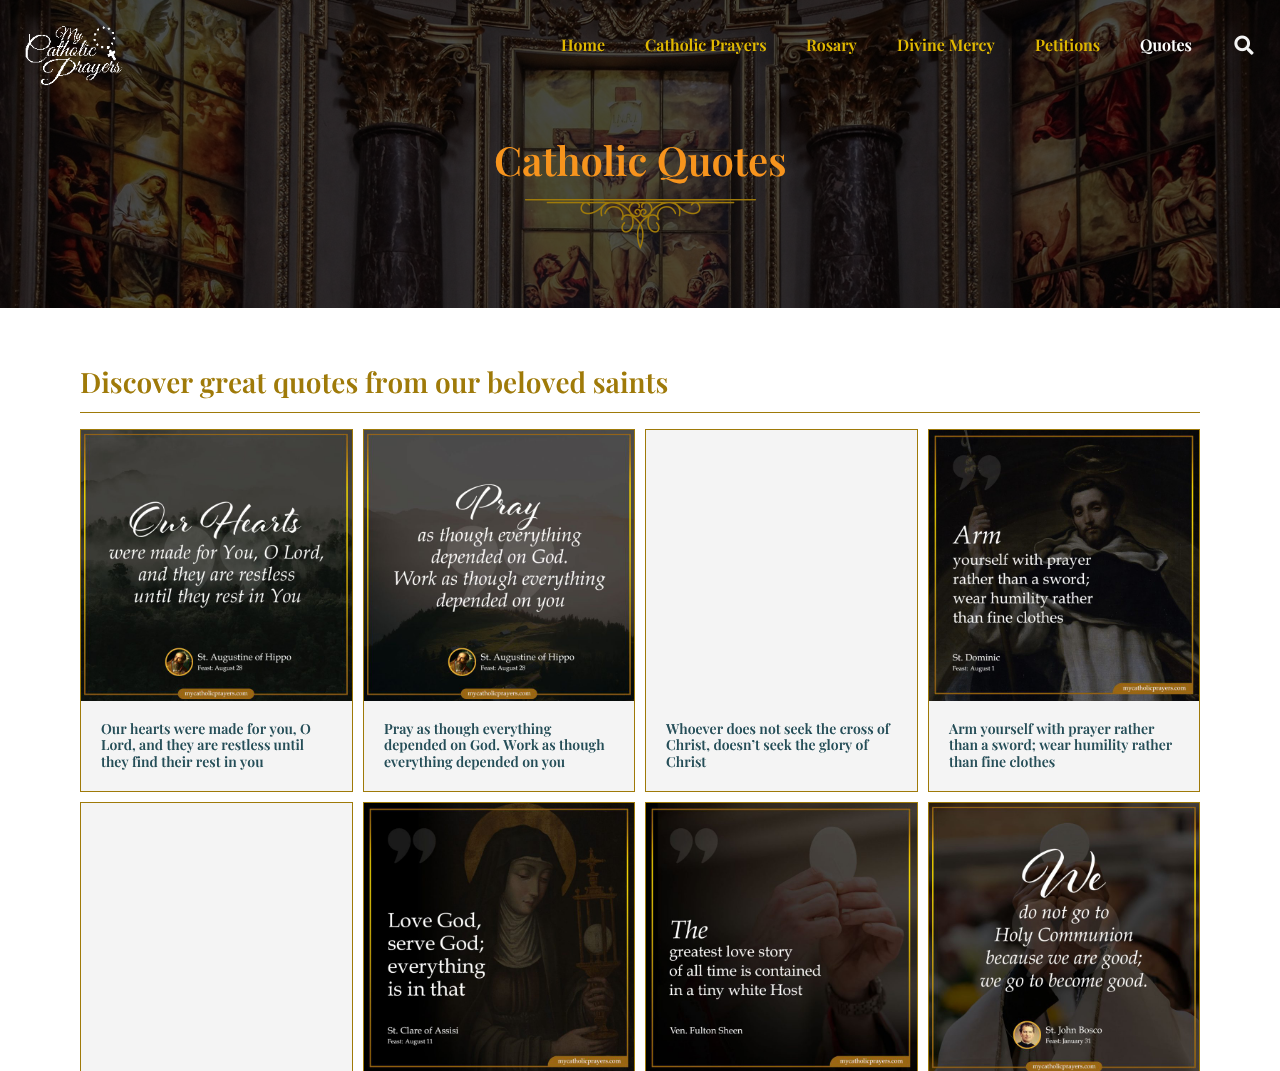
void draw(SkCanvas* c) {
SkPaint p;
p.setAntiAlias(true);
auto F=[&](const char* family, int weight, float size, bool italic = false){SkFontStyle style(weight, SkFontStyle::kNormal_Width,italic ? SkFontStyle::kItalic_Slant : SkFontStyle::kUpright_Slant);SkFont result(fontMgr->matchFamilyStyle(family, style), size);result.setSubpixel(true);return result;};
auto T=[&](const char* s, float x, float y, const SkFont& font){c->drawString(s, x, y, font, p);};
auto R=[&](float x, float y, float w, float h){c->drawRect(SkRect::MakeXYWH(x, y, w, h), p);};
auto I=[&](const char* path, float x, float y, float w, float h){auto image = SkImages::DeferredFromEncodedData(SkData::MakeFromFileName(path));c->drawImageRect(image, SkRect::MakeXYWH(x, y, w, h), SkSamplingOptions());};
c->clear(0xffffffff);
I("3.png",0,0,1280,308);
I("1.png",25,26,98,60);
auto f1 = F("Playfair Display",600,16);
p.setColor(0xffe0b800);
T("Home",561,51,f1);
T("Catholic Prayers",645,51,f1);
T("Rosary",806,51,f1);
T("Divine Mercy",897,51,f1);
T("Petitions",1035,51,f1);
p.setColor(0xffffffff);
T("Quotes",1140,51,f1);
I("2.png",1234,35,20,20);
auto f2 = F("Playfair Display",600,40);
p.setColor(0xfff7941d);
T("Catholic Quotes",494,176,f2);
I("4.png",525,199,231,50);
auto f3 = F("Playfair Display",600,28);
p.setColor(0xff9f7a09);
T("Discover great quotes from our beloved saints",80,393,f3);
R(80,412,1120,1);
p.setColor(0xfff4f4f4);
R(81,701,271,90);
p.setStroke(true);
p.setStrokeWidth(1);
p.setColor(0xff9f7a09);
c->drawRect(SkRect::MakeXYWH(80.5,429.5,272,362),p);
I("5.png",81,430,271,271);
auto f4 = F("Playfair Display",600,14);
p.setStroke(false);
p.setColor(0xff254e58);
T("Our hearts were made for you, O",101,734,f4);
T("Lord, and they are restless until",101,750,f4);
T("they find their rest in you",101,767,f4);
p.setColor(0xfff4f4f4);
R(364,701,270,90);
p.setStroke(true);
p.setColor(0xff9f7a09);
c->drawRect(SkRect::MakeXYWH(363.5,429.5,271,362),p);
I("6.png",364,430,270,271);
p.setStroke(false);
p.setColor(0xff254e58);
T("Pray as though everything",384,734,f4);
T("depended on God. Work as though",384,750,f4);
T("everything depended on you",384,767,f4);
p.setColor(0xfff4f4f4);
c->drawRect(SkRect::MakeXYWH(645.5,429.5,272,362),p);
p.setStroke(true);
p.setColor(0xff9f7a09);
c->drawRect(SkRect::MakeXYWH(645.5,429.5,272,362),p);
p.setStroke(false);
p.setColor(0xff254e58);
T("Whoever does not seek the cross of",666,734,f4);
T("Christ, doesn’t seek the glory of",666,750,f4);
T("Christ",666,767,f4);
p.setColor(0xfff4f4f4);
R(929,701,270,90);
p.setStroke(true);
p.setColor(0xff9f7a09);
c->drawRect(SkRect::MakeXYWH(928.5,429.5,271,362),p);
I("7.png",929,430,270,271);
p.setStroke(false);
p.setColor(0xff254e58);
T("Arm yourself with prayer rather",949,734,f4);
T("than a sword; wear humility rather",949,750,f4);
T("than fine clothes",949,767,f4);
p.setColor(0xfff4f4f4);
c->drawRect(SkRect::MakeXYWH(80.5,802.5,272,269),p);
p.setStroke(true);
p.setColor(0xff9f7a09);
c->drawRect(SkRect::MakeXYWH(80.5,802.5,272,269),p);
c->drawRect(SkRect::MakeXYWH(363.5,802.5,271,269),p);
I("8.png",364,803,270,268);
c->drawRect(SkRect::MakeXYWH(645.5,802.5,272,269),p);
I("9.png",646,803,271,268);
c->drawRect(SkRect::MakeXYWH(928.5,802.5,271,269),p);
I("10.png",929,803,270,268);
}
